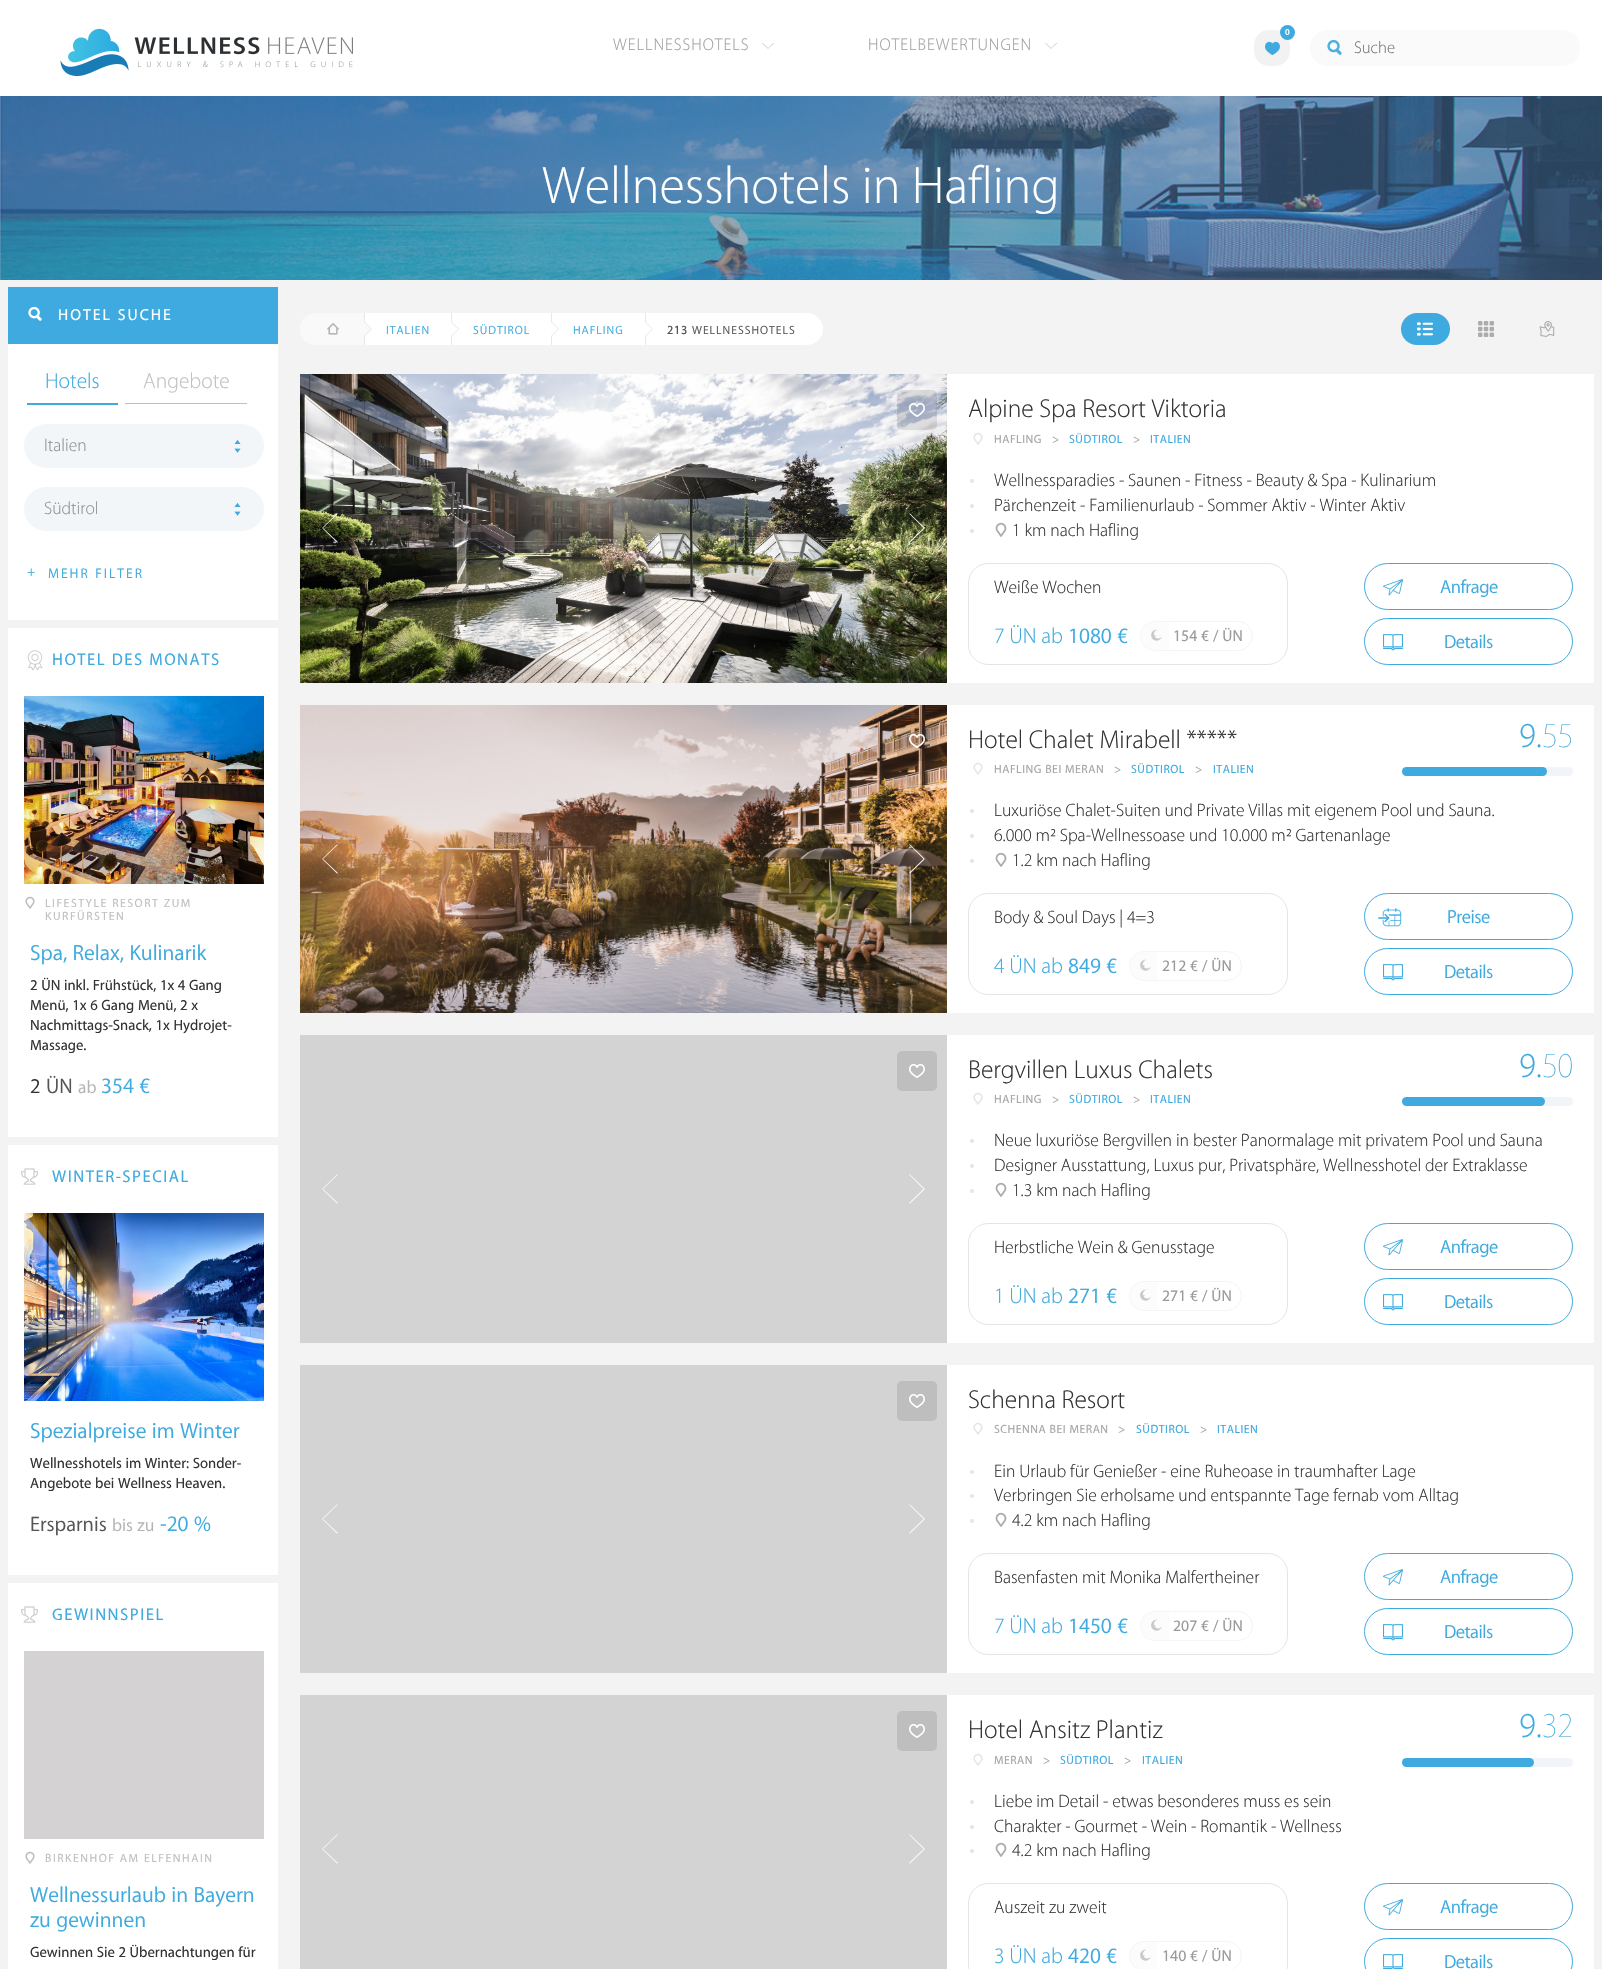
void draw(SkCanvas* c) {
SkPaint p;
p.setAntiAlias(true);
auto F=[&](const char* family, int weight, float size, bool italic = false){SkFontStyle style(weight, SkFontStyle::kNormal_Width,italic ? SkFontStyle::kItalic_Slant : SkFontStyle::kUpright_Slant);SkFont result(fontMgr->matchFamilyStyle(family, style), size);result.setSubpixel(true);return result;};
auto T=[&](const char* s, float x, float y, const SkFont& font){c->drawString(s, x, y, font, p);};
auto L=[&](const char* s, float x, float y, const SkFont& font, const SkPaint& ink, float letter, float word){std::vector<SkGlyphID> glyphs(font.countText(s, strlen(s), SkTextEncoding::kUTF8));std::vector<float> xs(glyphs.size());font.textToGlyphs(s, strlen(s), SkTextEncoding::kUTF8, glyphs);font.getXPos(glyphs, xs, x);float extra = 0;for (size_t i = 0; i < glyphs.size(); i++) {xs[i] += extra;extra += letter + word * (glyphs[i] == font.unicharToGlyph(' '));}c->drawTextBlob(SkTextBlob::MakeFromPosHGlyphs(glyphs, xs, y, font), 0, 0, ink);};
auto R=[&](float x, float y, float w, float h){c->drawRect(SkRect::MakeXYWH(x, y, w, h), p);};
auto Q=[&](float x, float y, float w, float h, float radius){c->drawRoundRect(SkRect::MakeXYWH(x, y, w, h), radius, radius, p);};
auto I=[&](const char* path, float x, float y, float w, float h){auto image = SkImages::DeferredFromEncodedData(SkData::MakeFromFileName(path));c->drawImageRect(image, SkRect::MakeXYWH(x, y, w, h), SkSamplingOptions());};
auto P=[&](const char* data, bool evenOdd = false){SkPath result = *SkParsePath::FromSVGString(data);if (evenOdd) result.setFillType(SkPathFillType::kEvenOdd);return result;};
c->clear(0xfff3f3f3);
p.setColor(0xffffffff);
R(0,0,1602,96);
I("1.png",60,28,293,48);
p.setColor(0xfff2f2f2);
Q(1254,30,36,36,15);
p.setColor(0xff3eaadf);
c->drawCircle(1287.5,32.5,7.5,p);
auto f1 = F("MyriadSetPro",600,9);
p.setColor(0xffffffff);
T("0",1285,35,f1);
I("2.png",1265,41,15,14);
auto f2 = F("MyriadSetPro",100,17);
p.setColor(0xffa0a0a0);
L("WELLNESSHOTELS",613,50,f2,p,1,0);
I("3.png",762,43,12,6);
L("HOTELBEWERTUNGEN",868,50,f2,p,1,0);
I("3.png",1045,43,12,6);
p.setColor(0xfffafafa);
Q(1310,30,270,36,18);
I("4.png",1327,39,15,16);
p.setColor(0xff757575);
T("Suche",1354,53,f2);
I("5.png",0,96,1602,184);
auto f3 = F("MyriadSetPro",100,53);
p.setColor(0xffffffff);
T("Wellnesshotels in Hafling",542,203,f3);
p.setColor(0xff3eaadf);
R(8,287,270,57);
I("6.png",28,306,14,15);
auto f4 = F("MyriadSetPro",500,16);
p.setColor(0xffffffff);
L("HOTEL SUCHE",58,320,f4,p,2,0);
R(8,344,270,276);
p.setColor(0xff3eaadf);
R(27,403,91,2);
auto f5 = F("MyriadSetPro",100,22);
T("Hotels",45,388,f5);
p.setColor(0xffc1c1c1);
R(125,403,122,1);
T("Angebote",143,388,f5);
p.setColor(0xfff3f6f8);
Q(24,424,240,44,22);
auto f6 = F("MyriadSetPro",100,18);
p.setColor(0xff8e9091);
T("Italien",44,451,f6);
I("7.png",234,439,7,14);
p.setColor(0xfff3f6f8);
Q(24,487,240,44,22);
p.setColor(0xff8e9091);
T("Südtirol",44,514,f6);
I("7.png",234,502,7,14);
auto f7 = F("MyriadSetPro",400,14);
p.setColor(0xff3eaadf);
L("+",27,576,f7,p,2,0);
L("MEHR FILTER",48,578,f7,p,2,0);
p.setColor(0xffffffff);
R(8,628,270,509);
I("8.png",27,650,16,21);
auto f8 = F("MyriadSetPro",500,17);
p.setColor(0xff3eaadf);
L("HOTEL DES MONATS",52,665,f8,p,1.5,0);
I("9.png",24,696,240,188);
I("10.png",25,896,10,13);
auto f9 = F("MyriadSetPro",500,12);
p.setColor(0xffc1c1c1);
L("LIFESTYLE RESORT ZUM",45,907,f9,p,1.5,0);
L("KURFÜRSTEN",45,920,f9,p,1.5,0);
auto f10 = F("MyriadSetPro",400,22);
p.setColor(0xff3eaadf);
T("Spa, Relax, Kulinarik",30,960,f10);
auto f11 = F("MyriadSetPro",500,15);
p.setColor(0xff333333);
T("2 ÜN inkl. Frühstück, 1x 4 Gang",30,990,f11);
T("Menü, 1x 6 Gang Menü, 2 x",30,1010,f11);
T("Nachmittags-Snack, 1x Hydrojet-",30,1030,f11);
T("Massage.",30,1050,f11);
auto f12 = F("MyriadSetPro",400,21);
T("2",30,1093,f12);
p.setColor(0xff555555);
T("ÜN",46,1093,f12);
auto f13 = F("MyriadSetPro",400,18);
p.setColor(0xffb3b3b3);
T("ab",78,1093,f13);
p.setColor(0xff3eaadf);
T("354 €",101,1093,f10);
p.setColor(0xffffffff);
R(8,1145,270,430);
I("11.png",21,1168,17,17);
p.setColor(0xff3eaadf);
L("WINTER-SPECIAL",52,1182,f8,p,1.5,0);
I("12.png",24,1213,240,188);
T("Spezialpreise im Winter",30,1438,f10);
p.setColor(0xff333333);
T("Wellnesshotels im Winter: Sonder-",30,1468,f11);
T("Angebote bei Wellness Heaven.",30,1488,f11);
p.setColor(0xff555555);
T("Ersparnis",30,1531,f12);
p.setColor(0xffb3b3b3);
T("bis zu",112,1531,f13);
p.setColor(0xff3eaadf);
T("-20 %",160,1531,f10);
p.setColor(0xffffffff);
R(8,1583,270,386);
I("11.png",21,1606,17,17);
p.setColor(0xff3eaadf);
L("GEWINNSPIEL",52,1620,f8,p,1.5,0);
p.setColor(0xffd4d2d2);
R(24,1651,240,188);
I("10.png",25,1851,10,13);
p.setColor(0xffc1c1c1);
L("BIRKENHOF AM ELFENHAIN",45,1862,f9,p,1.5,0);
p.setColor(0xff3eaadf);
T("Wellnessurlaub in Bayern",30,1902,f10);
T("zu gewinnen",30,1927,f10);
p.setColor(0xff333333);
T("Gewinnen Sie 2 Übernachtungen für",30,1957,f11);
p.setColor(0xffffffff);
Q(300,313,523,32,16);
p.setColor(0xfff9f9f9);
c->drawPath(P("M316 313h48v32h-48c-9 0-16-7-16-16c0-9 7-16 16-16z"),p);
I("13.png",327,323,12,12);
p.setColor(0xffe8e8e8);
R(364,313,1,32);
c->drawPath(P("M364 337v-16l8 8z"),p);
p.setColor(0xfff9f9f9);
c->drawPath(P("M364 336v-14l7 7z"),p);
auto f14 = F("MyriadSetPro",400,12);
p.setColor(0xff3eaadf);
L("ITALIEN",386,334,f14,p,1,0);
p.setColor(0xffe8e8e8);
R(451,313,1,32);
c->drawPath(P("M451 337v-16l8 8z"),p);
p.setColor(0xffffffff);
c->drawPath(P("M451 336v-14l7 7z"),p);
p.setColor(0xff3eaadf);
L("SÜDTIROL",473,334,f14,p,1,0);
p.setColor(0xffe8e8e8);
R(551,313,1,32);
c->drawPath(P("M551 337v-16l8 8z"),p);
p.setColor(0xffffffff);
c->drawPath(P("M551 336v-14l7 7z"),p);
p.setColor(0xff3eaadf);
L("HAFLING",573,334,f14,p,1,0);
p.setColor(0xffe8e8e8);
R(645,313,1,32);
c->drawPath(P("M645 337v-16l8 8z"),p);
p.setColor(0xffffffff);
c->drawPath(P("M645 336v-14l7 7z"),p);
auto f15 = F("MyriadSetPro",700,12);
p.setColor(0xff555555);
L("213",667,334,f15,p,1,0);
L("WELLNESSHOTELS",692,334,f14,p,1,0);
p.setColor(0xff3eaadf);
Q(1401,313,49,32,16);
I("14.png",1417,322,16,14);
I("15.png",1478,321,16,16);
I("16.png",1539,321,16,16);
p.setColor(0xffffffff);
R(947,374,647,309);
I("17.png",300,374,647,309);
p.setColor(0xe6ffffff);
c->drawPath(P("M322.5 528.5l15 14.5v-1.5l-14.5-13.5l14.5-14v-1l-15 14.5z"),p);
c->drawPath(P("M924.5 527.5l-15-14.5v1l14 14l-14 13.5v1.5l15-14.5z"),p);
p.setColor(0x1a000000);
Q(897,390,40,40,5);
I("18.png",909,403,16,14);
auto f16 = F("MyriadSetPro",100,26);
p.setColor(0xff333333);
T("Alpine Spa Resort Viktoria",968,417,f16);
I("19.png",973,432,10,13);
p.setColor(0xffa6a6a6);
L("HAFLING",994,443,f9,p,.5,0);
L(">",1052,443,f9,p,.5,0);
p.setColor(0xff3eaadf);
L("SÜDTIROL",1069,443,f9,p,.5,0);
p.setColor(0xffa6a6a6);
L(">",1133,443,f9,p,.5,0);
p.setColor(0xff3eaadf);
L("ITALIEN",1150,443,f9,p,.5,0);
p.setColor(0xffe5e5e5);
c->drawCircle(972,481,2,p);
p.setColor(0xff333333);
T("Wellnessparadies - Saunen - Fitness - Beauty & Spa - Kulinarium",994,486,f6);
p.setColor(0xffe5e5e5);
c->drawCircle(972,506,2,p);
p.setColor(0xff333333);
T("Pärchenzeit - Familienurlaub - Sommer Aktiv - Winter Aktiv",994,511,f6);
p.setColor(0xffe5e5e5);
c->drawCircle(972,531,2,p);
I("20.png",995,522,12,15);
p.setColor(0xff333333);
T("1 km nach Hafling",1012,536,f6);
p.setStroke(true);
p.setStrokeWidth(1);
p.setColor(0xffe5e5e5);
c->drawRoundRect(SkRect::MakeXYWH(968.5,563.5,319,101),19.5,19.5,p);
p.setStroke(false);
p.setColor(0xff333333);
T("Weiße Wochen",994,593,f6);
p.setColor(0xff3eaadf);
T("7 ÜN ab",994,643,f5);
T("1080 €",1068,643,f10);
p.setStroke(true);
p.setColor(0xfff4f4f4);
c->drawRoundRect(SkRect::MakeXYWH(1140.5,621.5,112,29),14.5,14.5,p);
p.setStroke(false);
p.setColor(0xfffcfcfc);
c->drawPath(P("M1155 622h14v28h-14c-7.5 0-14-6.5-14-14c0-7.5 6.5-14 14-14z"),p);
I("21.png",1151,629,11,12);
p.setColor(0xff9a9a9a);
T("154 € / ÜN",1173,641,f4);
p.setStroke(true);
p.setColor(0xff3eaadf);
c->drawRoundRect(SkRect::MakeXYWH(1364.5,563.5,208,46),23,23,p);
I("22.png",1383,579,20,17);
auto f17 = F("MyriadSetPro",400,19);
p.setStroke(false);
L("Anfrage",1440,593,f17,p,-.5,0);
p.setStroke(true);
c->drawRoundRect(SkRect::MakeXYWH(1364.5,618.5,208,46),23,23,p);
I("23.png",1383,634,20,17);
p.setStroke(false);
L("Details",1444,648,f17,p,-.5,0);
p.setColor(0xffffffff);
R(947,705,647,308);
I("24.png",300,705,647,308);
p.setColor(0xe6ffffff);
c->drawPath(P("M322.5 859.5l15 14.5v-1.5l-14.5-13.5l14.5-14v-1l-15 14.5z"),p);
c->drawPath(P("M924.5 858.5l-15-14.5v1l14 14l-14 13.5v1.5l15-14.5z"),p);
p.setColor(0x1a000000);
Q(897,721,40,40,5);
I("25.png",909,733,16,15);
p.setColor(0xff333333);
T("Hotel Chalet Mirabell *****",968,748,f16);
auto f18 = F("MyriadSetPro",100,35);
p.setColor(0xff3eaadf);
T("9.",1519,747,f18);
auto f19 = F("MyriadSetPro",200,35);
T("55",1542,747,f19);
p.setColor(0xfff1f4f9);
Q(1402,767,171,9,4.5);
p.setColor(0xff3eaadf);
Q(1402,767,145,9,4.5);
I("19.png",973,762,10,13);
p.setColor(0xffa6a6a6);
L("HAFLING BEI MERAN",994,773,f9,p,.5,0);
L(">",1114,773,f9,p,.5,0);
p.setColor(0xff3eaadf);
L("SÜDTIROL",1131,773,f9,p,.5,0);
p.setColor(0xffa6a6a6);
L(">",1195,773,f9,p,.5,0);
p.setColor(0xff3eaadf);
L("ITALIEN",1213,773,f9,p,.5,0);
p.setColor(0xffe5e5e5);
c->drawCircle(972,811,2,p);
p.setColor(0xff333333);
T("Luxuriöse Chalet-Suiten und Private Villas mit eigenem Pool und Sauna.",994,816,f6);
p.setColor(0xffe5e5e5);
c->drawCircle(972,836,2,p);
p.setColor(0xff333333);
T("6.000 m² Spa-Wellnessoase und 10.000 m² Gartenanlage",994,841,f6);
p.setColor(0xffe5e5e5);
c->drawCircle(972,861,2,p);
I("20.png",995,852,12,15);
p.setColor(0xff333333);
T("1.2 km nach Hafling",1012,866,f6);
p.setStroke(true);
p.setColor(0xffe5e5e5);
c->drawRoundRect(SkRect::MakeXYWH(968.5,893.5,319,101),19.5,19.5,p);
p.setStroke(false);
p.setColor(0xff333333);
T("Body & Soul Days | 4=3",994,923,f6);
p.setColor(0xff3eaadf);
T("4 ÜN ab",994,973,f5);
T("849 €",1068,973,f10);
p.setStroke(true);
p.setColor(0xfff4f4f4);
c->drawRoundRect(SkRect::MakeXYWH(1129.5,951.5,112,29),14.5,14.5,p);
p.setStroke(false);
p.setColor(0xfffcfcfc);
c->drawPath(P("M1144 952h14v28h-14c-7.5 0-14-6.5-14-14c0-7.5 6.5-14 14-14z"),p);
I("21.png",1140,959,11,12);
p.setColor(0xff9a9a9a);
T("212 € / ÜN",1162,971,f4);
p.setStroke(true);
p.setColor(0xff3eaadf);
c->drawRoundRect(SkRect::MakeXYWH(1364.5,893.5,208,46),23,23,p);
I("26.png",1378,908,24,19);
p.setStroke(false);
L("Preise",1447,923,f17,p,-.5,0);
p.setStroke(true);
c->drawRoundRect(SkRect::MakeXYWH(1364.5,948.5,208,46),23,23,p);
I("23.png",1383,964,20,17);
p.setStroke(false);
L("Details",1444,978,f17,p,-.5,0);
p.setColor(0xffffffff);
R(947,1035,647,308);
p.setColor(0xffd3d3d3);
R(300,1035,647,308);
p.setColor(0xfffbfbfb);
c->drawPath(P("M322.5 1189.5l15 14.5v-1.5l-14.5-13.5l14.5-14v-1l-15 14.5z"),p);
c->drawPath(P("M924.5 1188.5l-15-14.5v1l14 14l-14 13.5v1.5l15-14.5z"),p);
p.setColor(0xffbebebe);
Q(897,1051,40,40,5);
I("27.png",909,1064,16,14);
p.setColor(0xff333333);
T("Bergvillen Luxus Chalets",968,1078,f16);
p.setColor(0xff3eaadf);
T("9.",1519,1077,f18);
T("50",1542,1077,f19);
p.setColor(0xfff1f4f9);
Q(1402,1097,171,9,4.5);
p.setColor(0xff3eaadf);
Q(1402,1097,143,9,4.5);
I("19.png",973,1092,10,13);
p.setColor(0xffa6a6a6);
L("HAFLING",994,1103,f9,p,.5,0);
L(">",1052,1103,f9,p,.5,0);
p.setColor(0xff3eaadf);
L("SÜDTIROL",1069,1103,f9,p,.5,0);
p.setColor(0xffa6a6a6);
L(">",1133,1103,f9,p,.5,0);
p.setColor(0xff3eaadf);
L("ITALIEN",1150,1103,f9,p,.5,0);
p.setColor(0xffe5e5e5);
c->drawCircle(972,1141,2,p);
p.setColor(0xff333333);
T("Neue luxuriöse Bergvillen in bester Panormalage mit privatem Pool und Sauna",994,1146,f6);
p.setColor(0xffe5e5e5);
c->drawCircle(972,1166,2,p);
p.setColor(0xff333333);
T("Designer Ausstattung, Luxus pur, Privatsphäre, Wellnesshotel der Extraklasse",994,1171,f6);
p.setColor(0xffe5e5e5);
c->drawCircle(972,1191,2,p);
I("20.png",995,1182,12,15);
p.setColor(0xff333333);
T("1.3 km nach Hafling",1012,1196,f6);
p.setStroke(true);
p.setColor(0xffe5e5e5);
c->drawRoundRect(SkRect::MakeXYWH(968.5,1223.5,319,101),19.5,19.5,p);
p.setStroke(false);
p.setColor(0xff333333);
T("Herbstliche Wein & Genusstage",994,1253,f6);
p.setColor(0xff3eaadf);
T("1 ÜN ab",994,1303,f5);
T("271 €",1068,1303,f10);
p.setStroke(true);
p.setColor(0xfff4f4f4);
c->drawRoundRect(SkRect::MakeXYWH(1129.5,1281.5,112,29),14.5,14.5,p);
p.setStroke(false);
p.setColor(0xfffcfcfc);
c->drawPath(P("M1144 1282h14v28h-14c-7.5 0-14-6.5-14-14c0-7.5 6.5-14 14-14z"),p);
I("21.png",1140,1289,11,12);
p.setColor(0xff9a9a9a);
T("271 € / ÜN",1162,1301,f4);
p.setStroke(true);
p.setColor(0xff3eaadf);
c->drawRoundRect(SkRect::MakeXYWH(1364.5,1223.5,208,46),23,23,p);
I("22.png",1383,1239,20,17);
p.setStroke(false);
L("Anfrage",1440,1253,f17,p,-.5,0);
p.setStroke(true);
c->drawRoundRect(SkRect::MakeXYWH(1364.5,1278.5,208,46),23,23,p);
I("23.png",1383,1294,20,17);
p.setStroke(false);
L("Details",1444,1308,f17,p,-.5,0);
p.setColor(0xffffffff);
R(947,1365,647,308);
p.setColor(0xffd3d3d3);
R(300,1365,647,308);
p.setColor(0xfffbfbfb);
c->drawPath(P("M322.5 1519.5l15 14.5v-1.5l-14.5-13.5l14.5-14v-1l-15 14.5z"),p);
c->drawPath(P("M924.5 1518.5l-15-14.5v1l14 14l-14 13.5v1.5l15-14.5z"),p);
p.setColor(0xffbebebe);
Q(897,1381,40,40,5);
I("27.png",909,1394,16,14);
p.setColor(0xff333333);
T("Schenna Resort",968,1408,f16);
I("19.png",973,1422,10,13);
p.setColor(0xffa6a6a6);
L("SCHENNA BEI MERAN",994,1433,f9,p,.5,0);
L(">",1118,1433,f9,p,.5,0);
p.setColor(0xff3eaadf);
L("SÜDTIROL",1136,1433,f9,p,.5,0);
p.setColor(0xffa6a6a6);
L(">",1200,1433,f9,p,.5,0);
p.setColor(0xff3eaadf);
L("ITALIEN",1217,1433,f9,p,.5,0);
p.setColor(0xffe5e5e5);
c->drawCircle(972,1472,2,p);
p.setColor(0xff333333);
T("Ein Urlaub für Genießer - eine Ruheoase in traumhafter Lage",994,1477,f6);
p.setColor(0xffe5e5e5);
c->drawCircle(972,1496,2,p);
p.setColor(0xff333333);
T("Verbringen Sie erholsame und entspannte Tage fernab vom Alltag",994,1501,f6);
p.setColor(0xffe5e5e5);
c->drawCircle(972,1521,2,p);
I("20.png",995,1512,12,15);
p.setColor(0xff333333);
T("4.2 km nach Hafling",1012,1526,f6);
p.setStroke(true);
p.setColor(0xffe5e5e5);
c->drawRoundRect(SkRect::MakeXYWH(968.5,1553.5,319,101),19.5,19.5,p);
p.setStroke(false);
p.setColor(0xff333333);
T("Basenfasten mit Monika Malfertheiner",994,1583,f6);
p.setColor(0xff3eaadf);
T("7 ÜN ab",994,1633,f5);
T("1450 €",1068,1633,f10);
p.setStroke(true);
p.setColor(0xfff4f4f4);
c->drawRoundRect(SkRect::MakeXYWH(1140.5,1611.5,112,29),14.5,14.5,p);
p.setStroke(false);
p.setColor(0xfffcfcfc);
c->drawPath(P("M1155 1612h14v28h-14c-7.5 0-14-6.5-14-14c0-7.5 6.5-14 14-14z"),p);
I("21.png",1151,1619,11,12);
p.setColor(0xff9a9a9a);
T("207 € / ÜN",1173,1631,f4);
p.setStroke(true);
p.setColor(0xff3eaadf);
c->drawRoundRect(SkRect::MakeXYWH(1364.5,1553.5,208,46),23,23,p);
I("22.png",1383,1569,20,17);
p.setStroke(false);
L("Anfrage",1440,1583,f17,p,-.5,0);
p.setStroke(true);
c->drawRoundRect(SkRect::MakeXYWH(1364.5,1608.5,208,46),23,23,p);
I("23.png",1383,1624,20,17);
p.setStroke(false);
L("Details",1444,1638,f17,p,-.5,0);
p.setColor(0xffffffff);
R(947,1695,647,274);
p.setColor(0xffd3d3d3);
R(300,1695,647,274);
p.setColor(0xfffbfbfb);
c->drawPath(P("M322.5 1849.5l15 14.5v-1.5l-14.5-13.5l14.5-14v-1l-15 14.5z"),p);
c->drawPath(P("M924.5 1848.5l-15-14.5v1l14 14l-14 13.5v1.5l15-14.5z"),p);
p.setColor(0xffbebebe);
Q(897,1711,40,40,5);
I("27.png",909,1724,16,14);
p.setColor(0xff333333);
T("Hotel Ansitz Plantiz",968,1738,f16);
p.setColor(0xff3eaadf);
T("9.",1519,1737,f18);
T("32",1542,1737,f19);
p.setColor(0xfff1f4f9);
Q(1402,1758,171,9,4.5);
p.setColor(0xff3eaadf);
Q(1402,1758,132,9,4.5);
I("19.png",973,1753,10,13);
p.setColor(0xffa6a6a6);
L("MERAN",994,1764,f9,p,.5,0);
L(">",1043,1764,f9,p,.5,0);
p.setColor(0xff3eaadf);
L("SÜDTIROL",1060,1764,f9,p,.5,0);
p.setColor(0xffa6a6a6);
L(">",1124,1764,f9,p,.5,0);
p.setColor(0xff3eaadf);
L("ITALIEN",1142,1764,f9,p,.5,0);
p.setColor(0xffe5e5e5);
c->drawCircle(972,1802,2,p);
p.setColor(0xff333333);
T("Liebe im Detail - etwas besonderes muss es sein",994,1807,f6);
p.setColor(0xffe5e5e5);
c->drawCircle(972,1827,2,p);
p.setColor(0xff333333);
T("Charakter - Gourmet - Wein - Romantik - Wellness",994,1832,f6);
p.setColor(0xffe5e5e5);
c->drawCircle(972,1851,2,p);
I("20.png",995,1842,12,15);
p.setColor(0xff333333);
T("4.2 km nach Hafling",1012,1856,f6);
p.setStroke(true);
p.setColor(0xffe5e5e5);
c->drawRoundRect(SkRect::MakeXYWH(968.5,1883.5,319,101),19.5,19.5,p);
p.setStroke(false);
p.setColor(0xff333333);
T("Auszeit zu zweit",994,1913,f6);
p.setColor(0xff3eaadf);
T("3 ÜN ab",994,1963,f5);
T("420 €",1068,1963,f10);
p.setStroke(true);
p.setColor(0xfff4f4f4);
c->drawRoundRect(SkRect::MakeXYWH(1129.5,1941.5,112,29),14.5,14.5,p);
p.setStroke(false);
p.setColor(0xfffcfcfc);
c->drawPath(P("M1144 1942h14v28h-14c-7.5 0-14-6.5-14-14c0-7.5 6.5-14 14-14z"),p);
I("21.png",1140,1949,11,12);
p.setColor(0xff9a9a9a);
T("140 € / ÜN",1162,1961,f4);
p.setStroke(true);
p.setColor(0xff3eaadf);
c->drawRoundRect(SkRect::MakeXYWH(1364.5,1883.5,208,46),23,23,p);
I("22.png",1383,1899,20,17);
p.setStroke(false);
L("Anfrage",1440,1913,f17,p,-.5,0);
p.setStroke(true);
c->drawRoundRect(SkRect::MakeXYWH(1364.5,1938.5,208,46),23,23,p);
I("28.png",1383,1954,20,15);
p.setStroke(false);
L("Details",1444,1968,f17,p,-.5,0);
}
